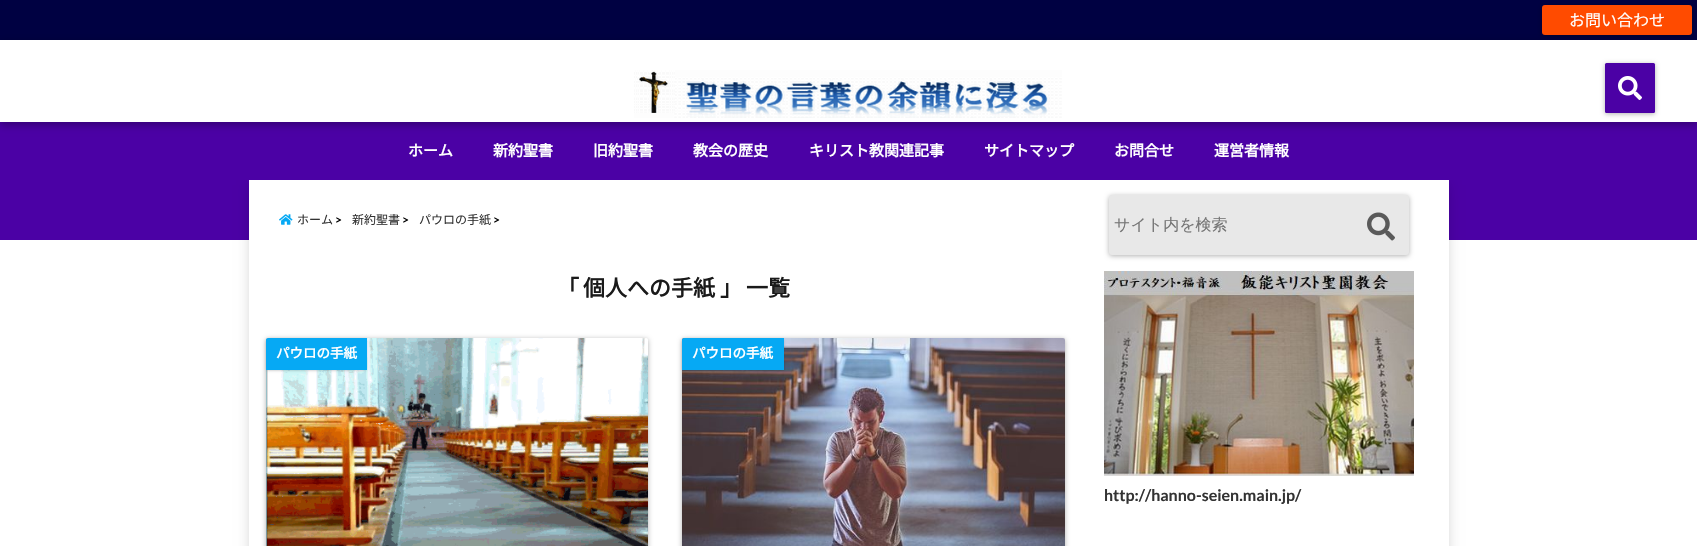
void draw(SkCanvas* c) {
SkPaint p;
p.setAntiAlias(true);
auto F=[&](const char* family, int weight, float size, bool italic = false){SkFontStyle style(weight, SkFontStyle::kNormal_Width,italic ? SkFontStyle::kItalic_Slant : SkFontStyle::kUpright_Slant);SkFont result(fontMgr->matchFamilyStyle(family, style), size);result.setSubpixel(true);return result;};
auto T=[&](const char* s, float x, float y, const SkFont& font){c->drawString(s, x, y, font, p);};
auto L=[&](const char* s, float x, float y, const SkFont& font, const SkPaint& ink, float letter, float word){std::vector<SkGlyphID> glyphs(font.countText(s, strlen(s), SkTextEncoding::kUTF8));std::vector<float> xs(glyphs.size());font.textToGlyphs(s, strlen(s), SkTextEncoding::kUTF8, glyphs);font.getXPos(glyphs, xs, x);float extra = 0;for (size_t i = 0; i < glyphs.size(); i++) {xs[i] += extra;extra += letter + word * (glyphs[i] == font.unicharToGlyph(' '));}c->drawTextBlob(SkTextBlob::MakeFromPosHGlyphs(glyphs, xs, y, font), 0, 0, ink);};
auto R=[&](float x, float y, float w, float h){c->drawRect(SkRect::MakeXYWH(x, y, w, h), p);};
auto Q=[&](float x, float y, float w, float h, float radius){c->drawRoundRect(SkRect::MakeXYWH(x, y, w, h), radius, radius, p);};
auto I=[&](const char* path, float x, float y, float w, float h){auto image = SkImages::DeferredFromEncodedData(SkData::MakeFromFileName(path));c->drawImageRect(image, SkRect::MakeXYWH(x, y, w, h), SkSamplingOptions());};
auto P=[&](const char* data, bool evenOdd = false){SkPath result = *SkParsePath::FromSVGString(data);if (evenOdd) result.setFillType(SkPathFillType::kEvenOdd);return result;};
c->clear(0xffffffff);
p.setColor(0xff000142);
R(0,0,1697,40);
p.setColor(0x4d000000);
p.setMaskFilter(SkMaskFilter::MakeBlur(kNormal_SkBlurStyle, 2.5));
c->drawRoundRect(SkRect::MakeXYWH(1542,6,150,30),3,3,p);
p.setMaskFilter(nullptr);
p.setColor(0xffff4b00);
Q(1542,5,150,30,3);
auto f1 = F("Noto Sans JP",100,16);
p.setColor(0xffffffff);
T("お問い合わせ",1569,26,f1);
p.setColor(0xff4b01a5);
R(0,180,1697,60);
p.setColor(0x4d000000);
p.setMaskFilter(SkMaskFilter::MakeBlur(kNormal_SkBlurStyle, 7.5));
c->drawRect(SkRect::MakeXYWH(254,185,1190,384),p);
p.setMaskFilter(nullptr);
p.setColor(0xff4b01a5);
R(0,122,1697,58);
p.setColor(0x4d000000);
p.setMaskFilter(SkMaskFilter::MakeBlur(kNormal_SkBlurStyle, 4));
c->drawRect(SkRect::MakeXYWH(0,43,1697,82),p);
p.setMaskFilter(nullptr);
p.setColor(0xffffffff);
R(0,40,1697,82);
I("1.png",634,70,428,48);
p.setColor(0x4d000000);
p.setMaskFilter(SkMaskFilter::MakeBlur(kNormal_SkBlurStyle, 2.5));
c->drawRoundRect(SkRect::MakeXYWH(1605,64,50,50),1.5,1.5,p);
p.setMaskFilter(nullptr);
p.setColor(0xff4b01a5);
Q(1605,63,50,50,1.5);
I("2.png",1618,76,24,24);
auto f2 = F("Noto Sans JP",700,15);
p.setColor(0xffffffff);
T("ホーム",408,156,f2);
T("新約聖書",493,156,f2);
T("旧約聖書",593,156,f2);
T("教会の歴史",693,156,f2);
T("キリスト教関連記事",809,156,f2);
T("サイトマップ",984,156,f2);
T("お問合せ",1114,156,f2);
T("運営者情報",1214,156,f2);
R(249,180,1200,366);
I("3.png",279,214,14,11);
auto f3 = F("Noto Sans JP",100,12);
p.setColor(0xff333333);
T("ホーム",297,224,f3);
auto f4 = F("Lato",700,12);
p.setColor(0xff010101);
T(">",335,224,f4);
p.setColor(0xff333333);
T("新約聖書",352,224,f3);
p.setColor(0xff010101);
T(">",402,224,f4);
p.setColor(0xff333333);
T("パウロの手紙",419,224,f3);
p.setColor(0xff010101);
T(">",493,224,f4);
auto f5 = F("Noto Sans JP",700,22);
p.setColor(0xff1a1a1a);
T("「",557,296,f5);
T("個人への手紙",583,296,f5);
L("」 一覧",720,296,f5,p,0,-1);
p.setColor(0x4d000000);
p.setMaskFilter(SkMaskFilter::MakeBlur(kNormal_SkBlurStyle, 2.5));
c->drawRoundRect(SkRect::MakeXYWH(266,339,382,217),2,2,p);
p.setMaskFilter(nullptr);
I("4.png",266,338,382,208);
p.setMaskFilter(SkMaskFilter::MakeBlur(kNormal_SkBlurStyle, 1.5));
c->drawRect(SkRect::MakeXYWH(267,340,99,30),p);
p.setMaskFilter(nullptr);
p.setColor(0xff06a9f4);
c->drawPath(P("M268 338h99v32h-101v-30c0-1 1-2 2-2z"),p);
auto f6 = F("Noto Sans JP",700,13.5);
p.setColor(0xffffffff);
T("パウロの手紙",276,358,f6);
p.setColor(0x4d000000);
p.setMaskFilter(SkMaskFilter::MakeBlur(kNormal_SkBlurStyle, 2.5));
c->drawRoundRect(SkRect::MakeXYWH(682,339,383,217),2,2,p);
p.setMaskFilter(nullptr);
I("5.png",682,338,383,208);
p.setMaskFilter(SkMaskFilter::MakeBlur(kNormal_SkBlurStyle, 1.5));
c->drawRect(SkRect::MakeXYWH(683,340,100,30),p);
p.setMaskFilter(nullptr);
p.setColor(0xff06a9f4);
c->drawPath(P("M684 338h100v32h-102v-30c0-1 1-2 2-2z"),p);
p.setColor(0xffffffff);
T("パウロの手紙",692,358,f6);
p.setColor(0x4d000000);
p.setMaskFilter(SkMaskFilter::MakeBlur(kNormal_SkBlurStyle, 2.5));
c->drawRoundRect(SkRect::MakeXYWH(1109,196,300,60),3,3,p);
p.setMaskFilter(nullptr);
p.setColor(0xffe8e8e8);
Q(1109,195,300,60,3);
auto f7 = F("WenQuanYi Zen Hei",500,16);
p.setColor(0xff757575);
T("サイト内を検索",1114,230,f7);
I("6.png",1367,212,28,29);
I("7.png",1104,271,310,205);
auto f8 = F("Lato",700,16);
p.setColor(0xff333333);
T("http://hanno-seien.main.jp/",1104,501,f8);
}
